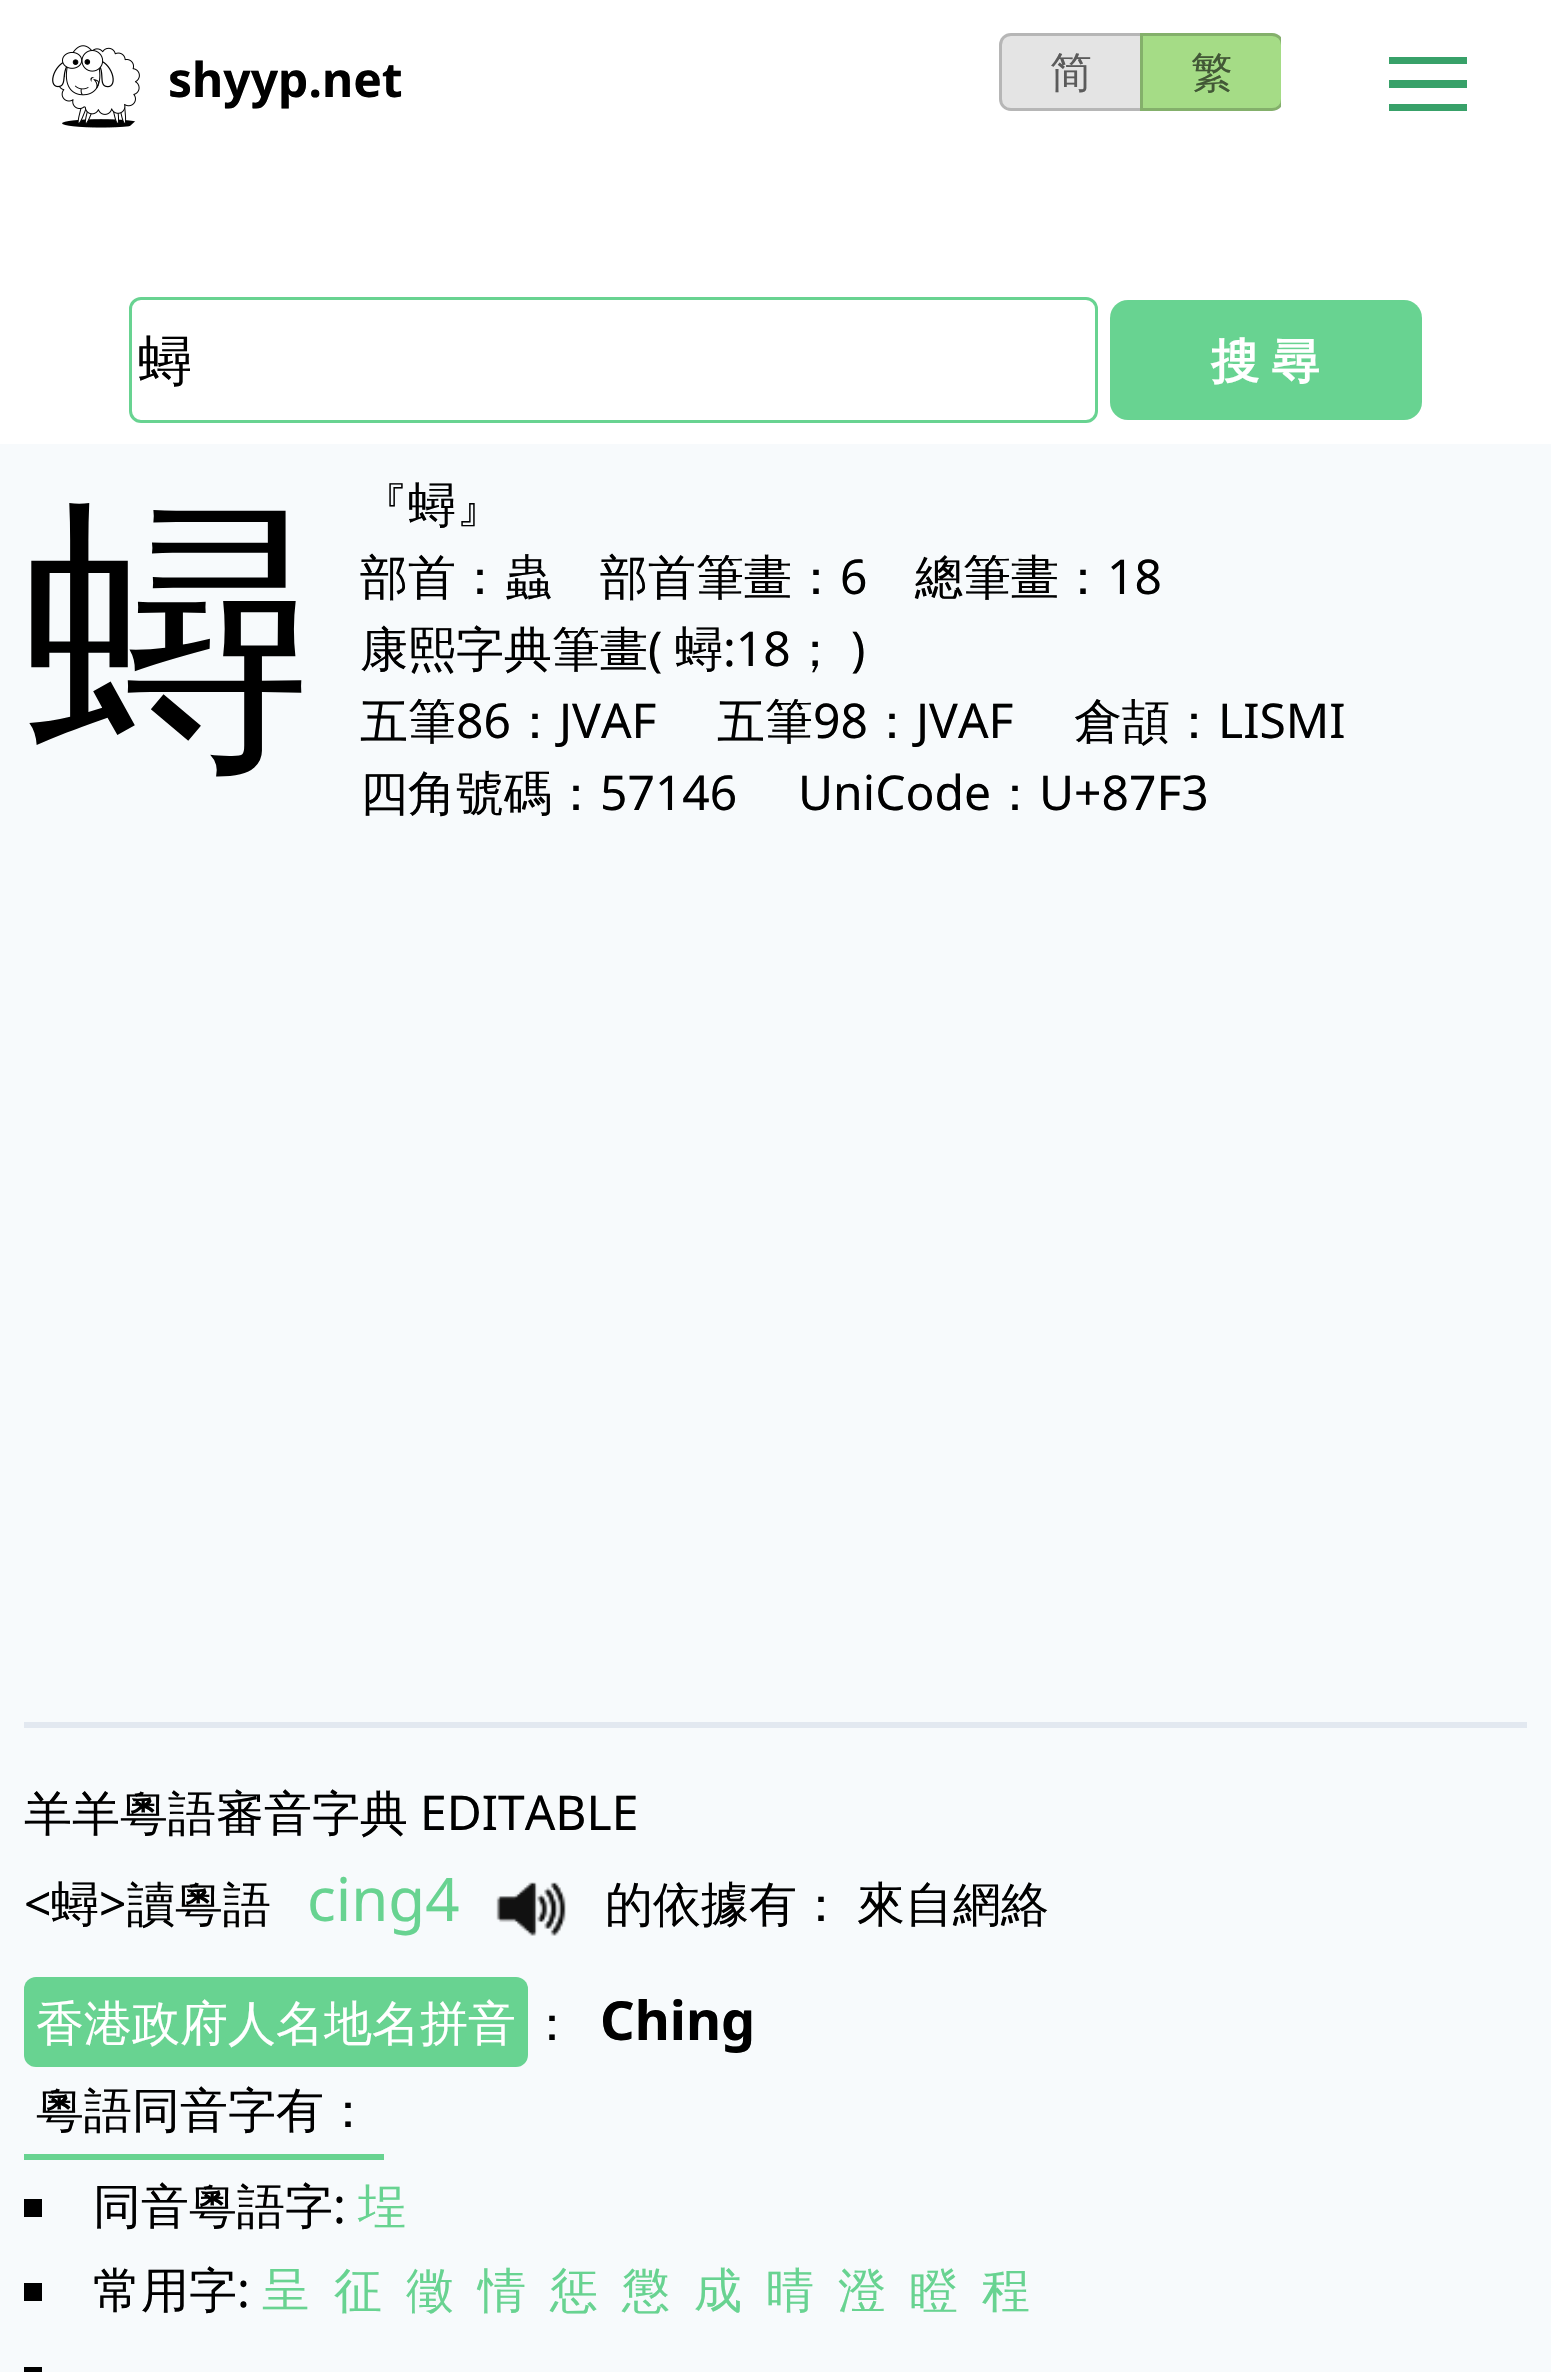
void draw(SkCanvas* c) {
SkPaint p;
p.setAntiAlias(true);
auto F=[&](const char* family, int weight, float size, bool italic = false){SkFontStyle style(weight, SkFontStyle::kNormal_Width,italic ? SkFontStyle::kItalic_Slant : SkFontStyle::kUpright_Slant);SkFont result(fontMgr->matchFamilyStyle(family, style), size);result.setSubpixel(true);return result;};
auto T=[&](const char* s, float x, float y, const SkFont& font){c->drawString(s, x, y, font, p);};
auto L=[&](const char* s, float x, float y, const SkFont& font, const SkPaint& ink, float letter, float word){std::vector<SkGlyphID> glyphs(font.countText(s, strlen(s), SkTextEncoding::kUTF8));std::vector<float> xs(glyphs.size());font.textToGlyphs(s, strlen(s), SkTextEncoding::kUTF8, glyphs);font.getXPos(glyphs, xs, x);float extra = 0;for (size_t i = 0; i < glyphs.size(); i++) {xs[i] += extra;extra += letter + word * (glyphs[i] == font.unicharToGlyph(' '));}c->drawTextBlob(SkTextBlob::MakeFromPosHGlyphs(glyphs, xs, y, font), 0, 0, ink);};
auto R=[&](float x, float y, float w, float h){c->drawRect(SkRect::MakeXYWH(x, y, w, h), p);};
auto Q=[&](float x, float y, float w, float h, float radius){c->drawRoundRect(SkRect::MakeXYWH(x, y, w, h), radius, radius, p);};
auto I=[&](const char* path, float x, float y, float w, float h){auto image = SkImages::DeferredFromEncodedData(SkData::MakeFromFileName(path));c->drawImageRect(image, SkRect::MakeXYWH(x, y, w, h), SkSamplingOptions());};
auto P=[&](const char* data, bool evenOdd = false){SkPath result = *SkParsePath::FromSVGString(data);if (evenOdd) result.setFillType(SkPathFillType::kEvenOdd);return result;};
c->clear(0xffffffff);
I("1.png",52,45,88,83);
auto f1 = F("Noto Sans",700,48);
p.setColor(0xff000000);
T("shyyp.net",168,97,f1);
p.setColor(0xffe4e4e4);
c->drawPath(P("M1011 33h132v78h-132c-6.5 0-12-5.5-12-12v-54c0-6.5 5.5-12 12-12z"),p);
p.setStroke(true);
p.setStrokeWidth(3);
p.setColor(0x33000000);
c->drawPath(P("M1011 34.5h130.5v75h-130.5c-6 0-10.5-4.5-10.5-10.5v-54c0-6 4.5-10.5 10.5-10.5z"),p);
auto f2 = F("WenQuanYi Zen Hei",500,42);
p.setStroke(false);
p.setColor(0xff5b5b5b);
T("简",1050,87,f2);
c->save();
c->clipRect(SkRect::MakeXYWH(999,33,282,78));
p.setColor(0xffa5dc86);
c->drawPath(P("M1140 33h132c6.5 0 12 5.5 12 12v54c0 6.5-5.5 12-12 12h-132z"),p);
p.setStroke(true);
p.setColor(0x33000000);
c->drawPath(P("M1141.5 34.5h130.5c6 0 10.5 4.5 10.5 10.5v54c0 6-4.5 10.5-10.5 10.5h-130.5z"),p);
c->restore();
p.setStroke(false);
p.setColor(0xff425836);
T("繁",1191,87,f2);
p.setColor(0xff38a169);
c->drawPath(P("M1389 57h78v7h-78zm0 23h78v8h-78zm0 24h78v7h-78z"),p);
p.setStroke(true);
p.setColor(0xff68d391);
c->drawRoundRect(SkRect::MakeXYWH(130.5,298.5,966,123),10.5,10.5,p);
auto f3 = F("WenQuanYi Zen Hei",500,54);
p.setStroke(false);
p.setColor(0xff000000);
T("蟳",138,380,f3);
p.setColor(0xff68d391);
Q(1110,300,312,120,18);
auto f4 = F("WenQuanYi Zen Hei",700,48);
p.setColor(0xffffffff);
L("搜 尋",1211,378,f4,p,0,-2);
p.setColor(0xfff7fafc);
R(0,444,1551,1928);
auto f5 = F("WenQuanYi Zen Hei",500,288);
p.setColor(0xff000000);
T("蟳",24,741,f5);
auto f6 = F("WenQuanYi Zen Hei",500,48);
T("『蟳』",360,522,f6);
T("部首：蟲",360,594,f6);
T("部首筆畫：",600,594,f6);
auto f7 = F("Noto Sans",400,48);
T("6",840,594,f7);
T("總筆畫：",915,594,f6);
T("18",1107,594,f7);
T("康熙字典筆畫",360,666,f6);
T("(",648,666,f7);
T("蟳",675,666,f6);
T(":18",723,666,f7);
T("；",791,666,f6);
T(")",851,666,f7);
T("五筆",360,738,f6);
T("86",456,738,f7);
T("：",511,738,f6);
T("JVAF",559,738,f7);
T("五筆",717,738,f6);
T("98",813,738,f7);
T("：",868,738,f6);
T("JVAF",916,738,f7);
T("倉頡：",1074,738,f6);
T("LISMI",1218,738,f7);
T("四角號碼：",360,810,f6);
T("57146",600,810,f7);
T("UniCode",798,810,f7);
T("：",991,810,f6);
T("U+87F3",1039,810,f7);
p.setColor(0xffe2e8f0);
R(24,1722,1503,6);
p.setColor(0xff000000);
T("羊羊粵語審音字典",24,1830,f6);
T("EDITABLE",420,1830,f7);
T("<",24,1921,f7);
T("蟳",51,1921,f6);
T(">",99,1921,f7);
T("讀粵語",127,1921,f6);
auto f8 = F("Noto Sans",400,60);
p.setColor(0xff68d391);
T("cing4",307,1921,f8);
I("2.png",496,1882,70,54);
p.setColor(0xff000000);
T("的依據有：",605,1921,f6);
T("來自網絡",857,1921,f6);
p.setColor(0xff68d391);
Q(24,1977,504,90,12);
p.setColor(0xffffffff);
T("香港政府人名地名拼音",36,2040,f6);
p.setColor(0xff000000);
T("：",528,2040,f6);
auto f9 = F("Noto Sans",700,54);
T("Ching",600,2040,f9);
T("粵語同音字有：",36,2127,f6);
p.setColor(0xff68d391);
R(24,2154,360,6);
p.setColor(0xff000000);
R(24,2199,18,18);
T("同音粵語字",93,2223,f6);
T(":",333,2223,f7);
p.setColor(0xff68d391);
T("埕",358,2223,f6);
p.setColor(0xff000000);
R(24,2283,18,18);
T("常用字",93,2307,f6);
T(":",237,2307,f7);
p.setColor(0xff68d391);
T("呈",262,2307,f6);
T("征",334,2307,f6);
T("徵",406,2307,f6);
T("情",478,2307,f6);
T("惩",550,2307,f6);
T("懲",622,2307,f6);
T("成",694,2307,f6);
T("晴",766,2307,f6);
T("澄",838,2307,f6);
T("瞪",910,2307,f6);
T("程",982,2307,f6);
p.setColor(0xff000000);
R(24,2367,18,5);
}
